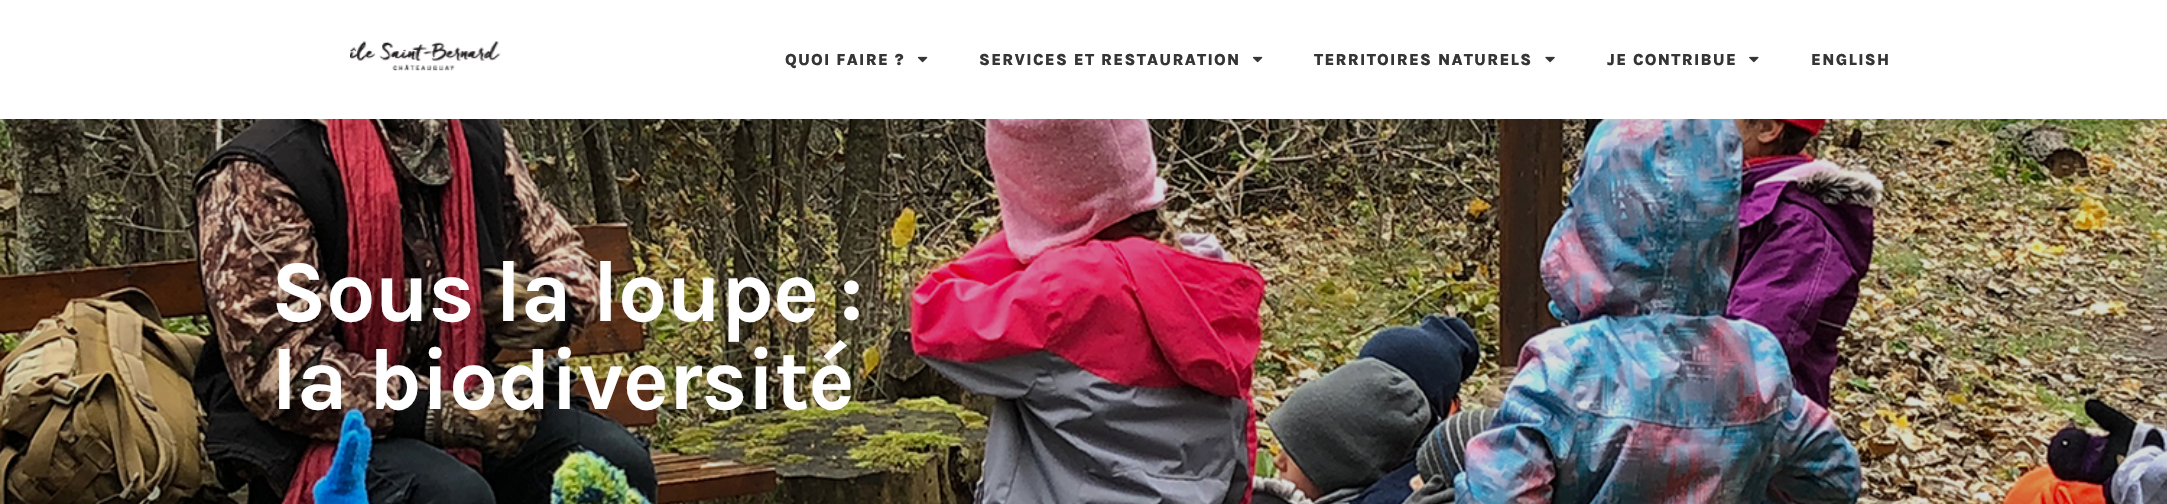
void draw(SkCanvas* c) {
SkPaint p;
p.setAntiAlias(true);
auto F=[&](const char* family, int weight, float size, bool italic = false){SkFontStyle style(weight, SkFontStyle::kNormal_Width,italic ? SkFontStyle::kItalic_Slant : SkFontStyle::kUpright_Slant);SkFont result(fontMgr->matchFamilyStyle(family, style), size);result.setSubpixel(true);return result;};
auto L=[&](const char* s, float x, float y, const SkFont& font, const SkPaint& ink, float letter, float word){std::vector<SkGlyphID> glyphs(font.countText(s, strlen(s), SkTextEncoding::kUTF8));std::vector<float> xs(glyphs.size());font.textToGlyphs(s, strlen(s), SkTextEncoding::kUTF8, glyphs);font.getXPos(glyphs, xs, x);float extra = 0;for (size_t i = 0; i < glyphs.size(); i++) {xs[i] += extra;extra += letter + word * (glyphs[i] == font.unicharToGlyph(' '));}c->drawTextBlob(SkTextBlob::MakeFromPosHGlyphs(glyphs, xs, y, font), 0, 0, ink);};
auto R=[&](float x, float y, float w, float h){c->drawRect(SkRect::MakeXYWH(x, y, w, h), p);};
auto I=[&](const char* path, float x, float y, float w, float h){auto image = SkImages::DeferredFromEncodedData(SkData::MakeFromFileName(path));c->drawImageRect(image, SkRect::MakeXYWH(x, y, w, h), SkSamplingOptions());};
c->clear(0xffffffff);
I("5.png",0,119,2167,385);
p.setColor(0x1a000000);
p.setMaskFilter(SkMaskFilter::MakeBlur(kNormal_SkBlurStyle, 24));
c->drawRect(SkRect::MakeXYWH(0,0,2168,119),p);
p.setMaskFilter(nullptr);
p.setColor(0xffffffff);
R(0,0,2167,119);
I("1.png",350,41,151,30);
auto f1 = F("Karla",800,16.25);
p.setColor(0xff353535);
L("QUOI FAIRE ?",785,65,f1,p,1.25,0);
I("2.png",917,56,11,7);
L("SERVICES ET RESTAURATION",979,65,f1,p,1.25,0);
I("2.png",1252,56,11,7);
L("TERRITOIRES NATURELS",1314,65,f1,p,1.25,0);
I("3.png",1545,56,10,7);
L("JE CONTRIBUE",1607,65,f1,p,1.25,0);
I("4.png",1749,56,10,7);
L("ENGLISH",1811,65,f1,p,1.25,0);
auto f2 = F("Karla",700,87.5);
p.setColor(0xffffffff);
L("Sous la loupe :",271,321,f2,p,-.9,0);
L("la biodiversité",271,409,f2,p,-.9,0);
}
